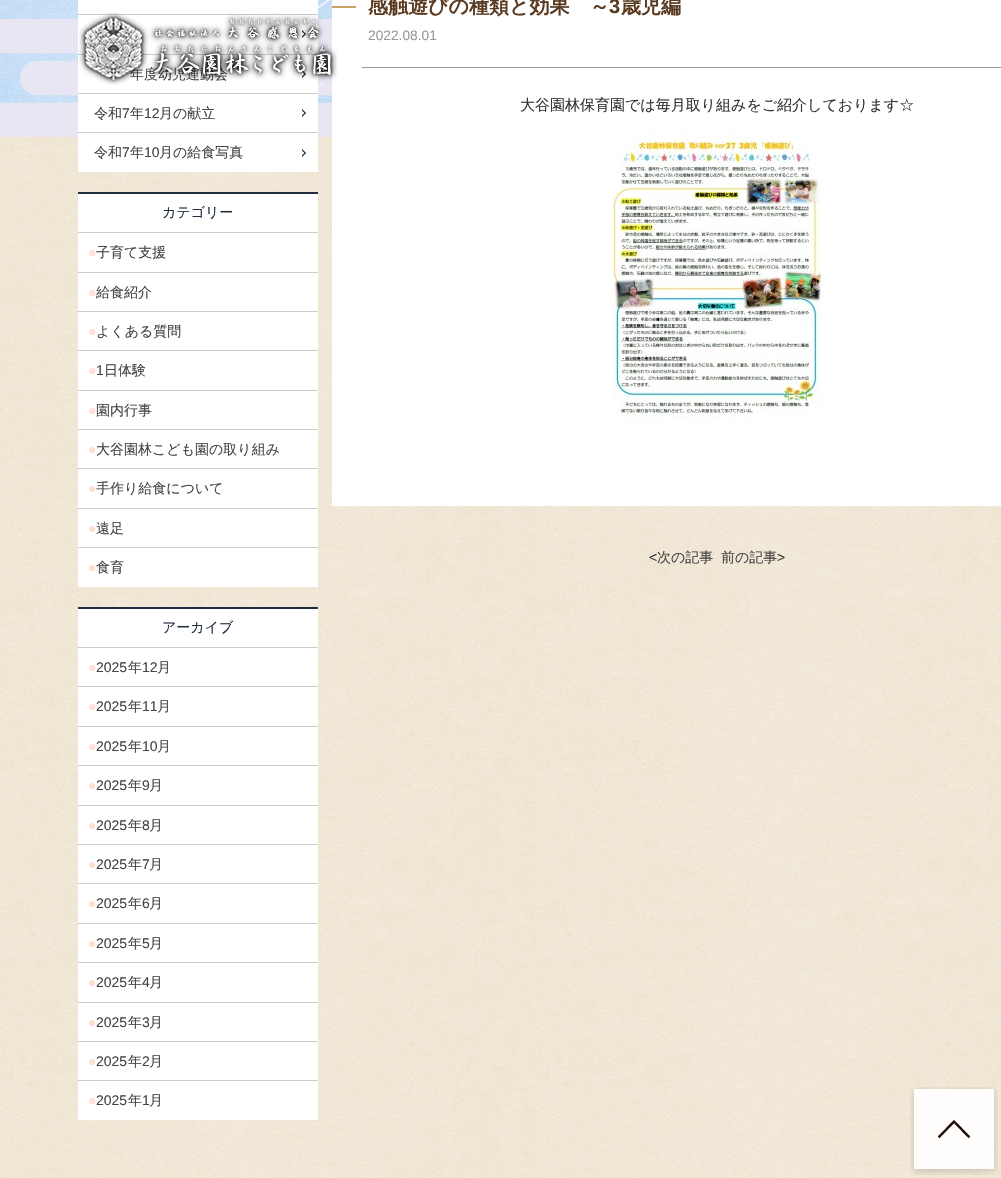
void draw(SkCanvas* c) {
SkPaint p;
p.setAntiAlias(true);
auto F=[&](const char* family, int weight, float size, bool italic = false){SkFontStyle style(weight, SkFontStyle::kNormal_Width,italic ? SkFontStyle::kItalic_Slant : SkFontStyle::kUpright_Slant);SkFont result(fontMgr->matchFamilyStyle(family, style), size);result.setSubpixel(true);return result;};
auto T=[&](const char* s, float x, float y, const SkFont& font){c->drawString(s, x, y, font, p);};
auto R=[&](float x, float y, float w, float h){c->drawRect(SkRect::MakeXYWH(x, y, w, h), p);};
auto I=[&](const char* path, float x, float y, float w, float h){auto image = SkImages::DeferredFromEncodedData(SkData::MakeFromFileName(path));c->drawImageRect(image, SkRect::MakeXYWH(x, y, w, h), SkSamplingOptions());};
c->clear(0xffffffff);
I("1.png",0,0,1001,1178);
I("6.png",0,19,332,118);
p.setColor(0xffffffff);
R(78,0,240,172);
p.setColor(0xffcccccc);
R(78,14,240,1);
I("2.png",302,30,4,8);
R(78,54,240,1);
I("2.png",302,70,4,8);
auto f1 = F("WenQuanYi Zen Hei",500,14);
p.setColor(0xff444444);
T("年度幼児運動会",130,79,f1);
p.setColor(0xffcccccc);
R(78,93,240,1);
I("2.png",302,109,4,8);
p.setColor(0xff444444);
T("令和",94,118,f1);
auto f2 = F("Liberation Sans",400,14);
T("7",122,118,f2);
T("年",130,118,f1);
T("12",144,118,f2);
T("月の献立",159,118,f1);
p.setColor(0xffcccccc);
R(78,132,240,1);
I("2.png",302,149,4,8);
p.setColor(0xff444444);
T("令和",94,157,f1);
T("7",122,157,f2);
T("年",130,157,f1);
T("10",144,157,f2);
T("月の給食写真",159,157,f1);
p.setColor(0xffffffff);
R(78,194,240,393);
p.setColor(0xff202d3e);
R(78,192,240,2);
T("カテゴリー",162,217,f1);
p.setColor(0xffcccccc);
R(78,232,240,1);
p.setColor(0xffffe0d5);
T("●",88,257,f2);
p.setColor(0xff444444);
T("子育て支援",96,257,f1);
p.setColor(0xffcccccc);
R(78,272,240,1);
p.setColor(0xffffe0d5);
T("●",88,297,f2);
p.setColor(0xff444444);
T("給食紹介",96,297,f1);
p.setColor(0xffcccccc);
R(78,311,240,1);
p.setColor(0xffffe0d5);
T("●",88,336,f2);
p.setColor(0xff444444);
T("よくある質問",96,336,f1);
p.setColor(0xffcccccc);
R(78,350,240,1);
p.setColor(0xffffe0d5);
T("●",88,375,f2);
p.setColor(0xff444444);
T("1",96,375,f2);
T("日体験",104,375,f1);
p.setColor(0xffcccccc);
R(78,390,240,1);
p.setColor(0xffffe0d5);
T("●",88,415,f2);
p.setColor(0xff444444);
T("園内行事",96,415,f1);
p.setColor(0xffcccccc);
R(78,429,240,1);
p.setColor(0xffffe0d5);
T("●",88,454,f2);
p.setColor(0xff444444);
T("大谷園林こども園の取り組み",96,454,f1);
p.setColor(0xffcccccc);
R(78,468,240,1);
p.setColor(0xffffe0d5);
T("●",88,493,f2);
p.setColor(0xff444444);
T("手作り給食について",96,493,f1);
p.setColor(0xffcccccc);
R(78,508,240,1);
p.setColor(0xffffe0d5);
T("●",88,533,f2);
p.setColor(0xff444444);
T("遠足",96,533,f1);
p.setColor(0xffcccccc);
R(78,547,240,1);
p.setColor(0xffffe0d5);
T("●",88,572,f2);
p.setColor(0xff444444);
T("食育",96,572,f1);
p.setColor(0xffffffff);
R(78,609,240,511);
p.setColor(0xff202d3e);
R(78,607,240,2);
T("アーカイブ",162,632,f1);
p.setColor(0xffcccccc);
R(78,647,240,1);
p.setColor(0xffffe0d5);
T("●",88,672,f2);
p.setColor(0xff444444);
T("2025",96,672,f2);
T("年",128,672,f1);
T("12",142,672,f2);
T("月",157,672,f1);
p.setColor(0xffcccccc);
R(78,686,240,1);
p.setColor(0xffffe0d5);
T("●",88,711,f2);
p.setColor(0xff444444);
T("2025",96,711,f2);
T("年",128,711,f1);
T("11",142,711,f2);
T("月",157,711,f1);
p.setColor(0xffcccccc);
R(78,726,240,1);
p.setColor(0xffffe0d5);
T("●",88,751,f2);
p.setColor(0xff444444);
T("2025",96,751,f2);
T("年",128,751,f1);
T("10",142,751,f2);
T("月",157,751,f1);
p.setColor(0xffcccccc);
R(78,765,240,1);
p.setColor(0xffffe0d5);
T("●",88,790,f2);
p.setColor(0xff444444);
T("2025",96,790,f2);
T("年",128,790,f1);
T("9",142,790,f2);
T("月",149,790,f1);
p.setColor(0xffcccccc);
R(78,805,240,1);
p.setColor(0xffffe0d5);
T("●",88,830,f2);
p.setColor(0xff444444);
T("2025",96,830,f2);
T("年",128,830,f1);
T("8",142,830,f2);
T("月",149,830,f1);
p.setColor(0xffcccccc);
R(78,844,240,1);
p.setColor(0xffffe0d5);
T("●",88,869,f2);
p.setColor(0xff444444);
T("2025",96,869,f2);
T("年",128,869,f1);
T("7",142,869,f2);
T("月",149,869,f1);
p.setColor(0xffcccccc);
R(78,883,240,1);
p.setColor(0xffffe0d5);
T("●",88,908,f2);
p.setColor(0xff444444);
T("2025",96,908,f2);
T("年",128,908,f1);
T("6",142,908,f2);
T("月",149,908,f1);
p.setColor(0xffcccccc);
R(78,923,240,1);
p.setColor(0xffffe0d5);
T("●",88,948,f2);
p.setColor(0xff444444);
T("2025",96,948,f2);
T("年",128,948,f1);
T("5",142,948,f2);
T("月",149,948,f1);
p.setColor(0xffcccccc);
R(78,962,240,1);
p.setColor(0xffffe0d5);
T("●",88,987,f2);
p.setColor(0xff444444);
T("2025",96,987,f2);
T("年",128,987,f1);
T("4",142,987,f2);
T("月",149,987,f1);
p.setColor(0xffcccccc);
R(78,1002,240,1);
p.setColor(0xffffe0d5);
T("●",88,1027,f2);
p.setColor(0xff444444);
T("2025",96,1027,f2);
T("年",128,1027,f1);
T("3",142,1027,f2);
T("月",149,1027,f1);
p.setColor(0xffcccccc);
R(78,1041,240,1);
p.setColor(0xffffe0d5);
T("●",88,1066,f2);
p.setColor(0xff444444);
T("2025",96,1066,f2);
T("年",128,1066,f1);
T("2",142,1066,f2);
T("月",149,1066,f1);
p.setColor(0xffcccccc);
R(78,1080,240,1);
p.setColor(0xffffe0d5);
T("●",88,1105,f2);
p.setColor(0xff444444);
T("2025",96,1105,f2);
T("年",128,1105,f1);
T("1",142,1105,f2);
T("月",149,1105,f1);
p.setColor(0xffffffff);
R(332,0,669,506);
p.setColor(0xffc7a463);
R(332,6,24,2);
auto f3 = F("WenQuanYi Zen Hei",700,20);
p.setColor(0xff5a3b21);
T("感触遊びの種類と効果　～",368,13,f3);
auto f4 = F("Liberation Sans",700,20);
T("3",609,13,f4);
T("歳児編",621,13,f3);
auto f5 = F("Liberation Sans",400,13.75);
p.setColor(0xff999999);
T("2022.08.01",368,40,f5);
R(362,67,639,1);
auto f6 = F("WenQuanYi Zen Hei",500,15);
p.setColor(0xff333333);
T("大谷園林保育園では毎月取り組みをご紹介しております☆",520,110,f6);
I("3.png",613,132,208,288);
T("<",649,562,f2);
p.setColor(0xff444444);
T("次の記事",657,562,f1);
T("前の記事",721,562,f1);
p.setColor(0xff333333);
T(">",777,562,f2);
I("4.png",318,0,14,88);
I("5.png",79,12,259,73);
I("7.png",910,1087,88,88);
}
